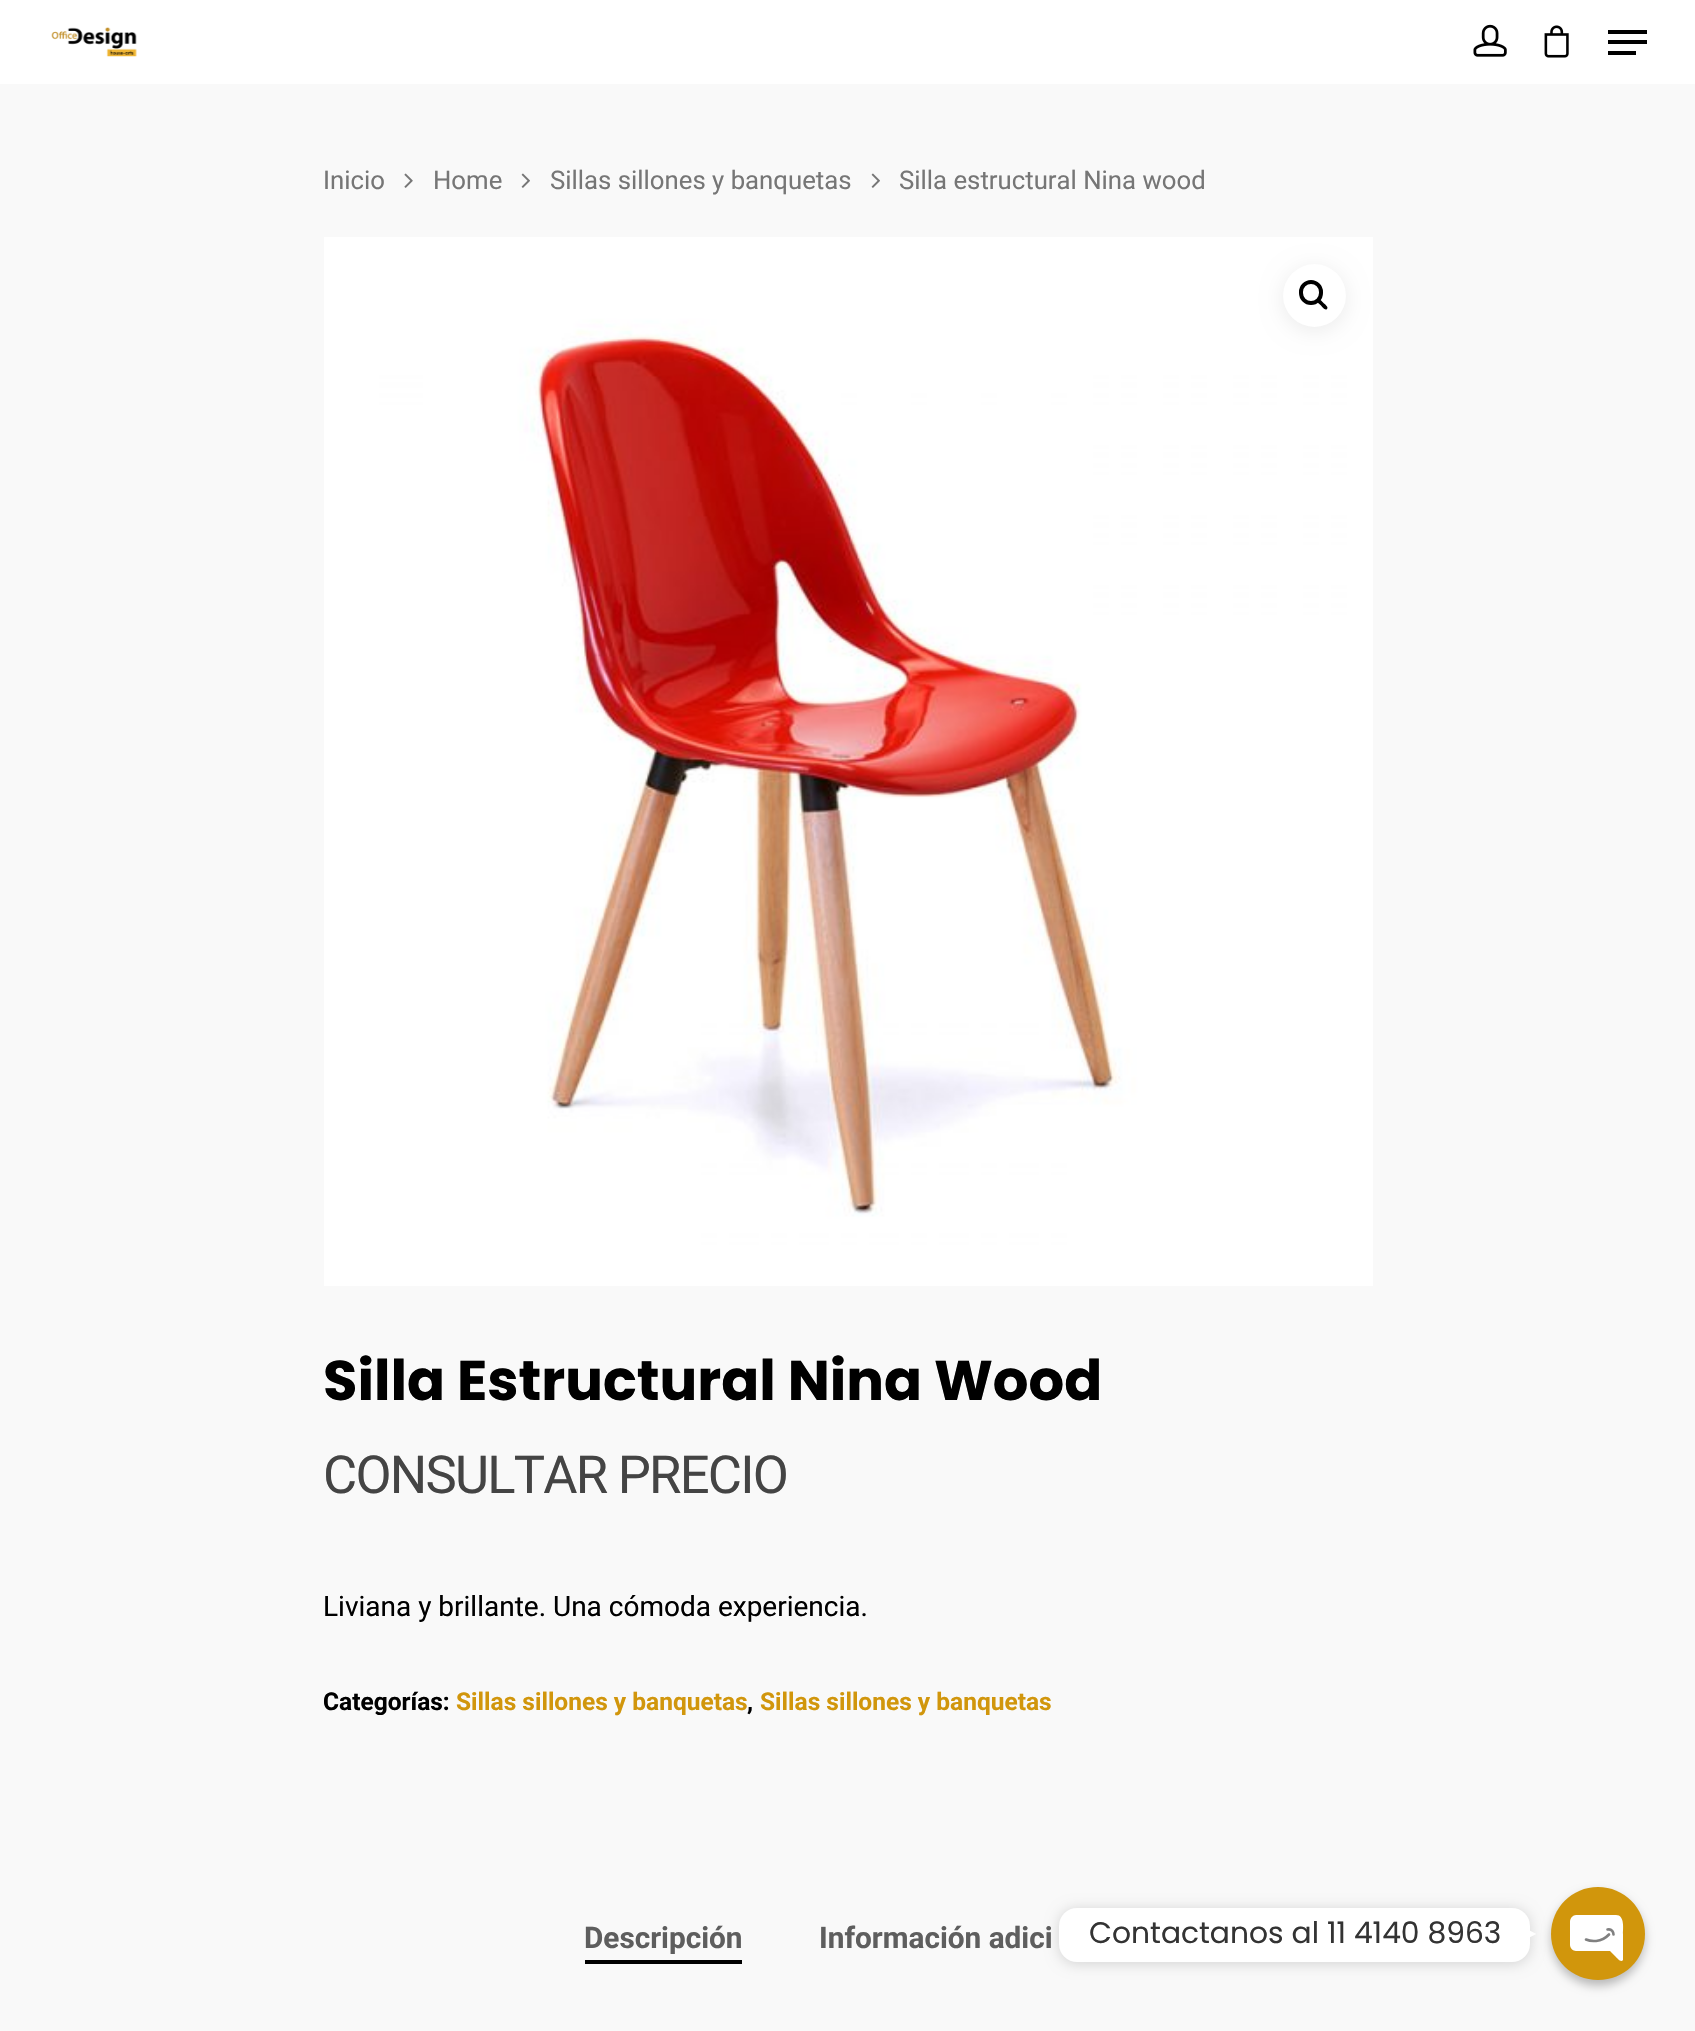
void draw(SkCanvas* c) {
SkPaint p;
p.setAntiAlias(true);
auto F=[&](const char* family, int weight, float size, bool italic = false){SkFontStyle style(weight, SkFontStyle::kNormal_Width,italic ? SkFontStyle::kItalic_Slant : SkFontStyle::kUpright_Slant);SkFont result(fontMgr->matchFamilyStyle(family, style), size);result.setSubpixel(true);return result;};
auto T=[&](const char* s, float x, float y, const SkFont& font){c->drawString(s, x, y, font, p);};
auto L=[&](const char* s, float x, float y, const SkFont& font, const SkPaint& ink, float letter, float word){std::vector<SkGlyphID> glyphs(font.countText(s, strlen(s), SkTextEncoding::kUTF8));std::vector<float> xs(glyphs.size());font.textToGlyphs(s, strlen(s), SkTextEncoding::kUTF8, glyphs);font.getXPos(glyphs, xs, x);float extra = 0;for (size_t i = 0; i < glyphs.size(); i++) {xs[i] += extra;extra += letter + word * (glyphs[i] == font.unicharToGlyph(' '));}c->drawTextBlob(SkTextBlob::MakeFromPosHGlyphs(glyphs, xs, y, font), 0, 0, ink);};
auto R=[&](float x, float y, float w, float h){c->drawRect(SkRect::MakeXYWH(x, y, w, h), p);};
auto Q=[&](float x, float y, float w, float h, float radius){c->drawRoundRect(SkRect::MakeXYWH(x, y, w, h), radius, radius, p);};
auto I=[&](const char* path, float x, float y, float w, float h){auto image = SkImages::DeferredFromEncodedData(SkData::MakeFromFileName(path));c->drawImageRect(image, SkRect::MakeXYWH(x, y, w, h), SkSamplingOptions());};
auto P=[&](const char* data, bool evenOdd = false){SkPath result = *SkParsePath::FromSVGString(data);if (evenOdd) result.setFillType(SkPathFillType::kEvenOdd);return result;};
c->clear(0xfff9f9f9);
p.setColor(0xffffffff);
R(0,0,1695,84);
I("1.png",51,27,86,30);
I("2.png",1473,24,34,33);
I("3.png",1544,25,25,33);
p.setColor(0xff000000);
R(1608,30,39,4);
R(1608,51,28,4);
R(1608,40,39,4);
auto f1 = F("Roboto",400,25.75);
p.setColor(0xff767676);
T("Inicio",323,189,f1);
I("4.png",404,173,9,15);
T("Home",433,189,f1);
I("5.png",521,173,9,15);
T("Sillas sillones y banquetas",550,189,f1);
I("5.png",871,173,9,15);
T("Silla estructural Nina wood",899,189,f1);
I("6.png",324,237,1049,1049);
p.setColor(0x14000000);
p.setMaskFilter(SkMaskFilter::MakeBlur(kNormal_SkBlurStyle, 10.5));
c->drawRoundRect(SkRect::MakeXYWH(1283,268,63,63),31.5,31.5,p);
p.setMaskFilter(nullptr);
p.setColor(0xffffffff);
c->drawCircle(1314.5,295.5,31.5,p);
p.setStroke(true);
p.setStrokeWidth(4);
p.setColor(0xff000000);
c->drawRoundRect(SkRect::MakeXYWH(1301,282,20,21),10,10,p);
p.setStroke(false);
c->drawPath(P("M1317 299c2-1.5 5.5 3 6.5 4c1 1 5.5 4 3.5 6c-2 2-5-2.5-6-3.5c-1-1-6-4.5-4-6.5z"),p);
auto f2 = F("Poppins",700,56);
T("Silla Estructural Nina Wood",323,1400,f2);
auto f3 = F("Roboto",400,52.5);
p.setColor(0xff444444);
L("CONSULTAR PRECIO",323,1493,f3,p,-1.75,0);
auto f4 = F("Roboto",400,28);
p.setColor(0xff000000);
T("Liviana y brillante. Una cómoda experiencia.",323,1616,f4);
auto f5 = F("Roboto",700,24.5);
T("Categorías:",323,1710,f5);
p.setColor(0xffd1960c);
T("Sillas sillones y banquetas",456,1710,f5);
p.setColor(0xff000000);
T(",",747,1710,f5);
p.setColor(0xffd1960c);
T("Sillas sillones y banquetas",760,1710,f5);
p.setColor(0xff000000);
R(585,1960,157,4);
auto f6 = F("Roboto",700,29.75);
p.setColor(0xff5e5e5e);
T("Descripción",584,1948,f6);
T("Información adici",819,1948,f6);
p.setColor(0x40000000);
p.setMaskFilter(SkMaskFilter::MakeBlur(kNormal_SkBlurStyle, 5));
c->drawRoundRect(SkRect::MakeXYWH(1551,1892,94,94),47,47,p);
p.setMaskFilter(nullptr);
p.setColor(0xffd1960c);
c->drawPath(P("M1598 1887c26 0 47 21 47 47c0 26-21 46-47 46c-26 0-47-20-47-46c0-26 21-47 47-47z"),p);
p.setColor(0x26000000);
p.setMaskFilter(SkMaskFilter::MakeBlur(kNormal_SkBlurStyle, 7));
c->drawRoundRect(SkRect::MakeXYWH(1059,1909,471,55),18,18,p);
p.setMaskFilter(nullptr);
p.setColor(0xffffffff);
Q(1059,1908,471,54,18);
auto f7 = F("Poppins",400,29.75);
p.setColor(0xff333333);
T("Contactanos al 11 4140 8963",1089,1943,f7);
p.setColor(0xffffffff);
c->drawPath(P("M1519 1942.5v-17.5l17.5 9z"),p);
c->drawPath(P("M1616 1915h-40c-3 0-6 3-6 7v23c0 3 3 6 6 6h34l6 6c1 1 5 6 7 3v-26c0-5 2-19-7-19z"),p);
p.setStroke(true);
p.setStrokeWidth(2.6);
p.setStrokeCap(SkPaint::kRound_Cap);
p.setStrokeJoin(SkPaint::kRound_Join);
p.setColor(0xff808080);
c->drawPath(P("M1586 1939.5c4.5 2 15 3.5 23-5m4.5 0c0-2-1.5-6-6-5"),p);
}
